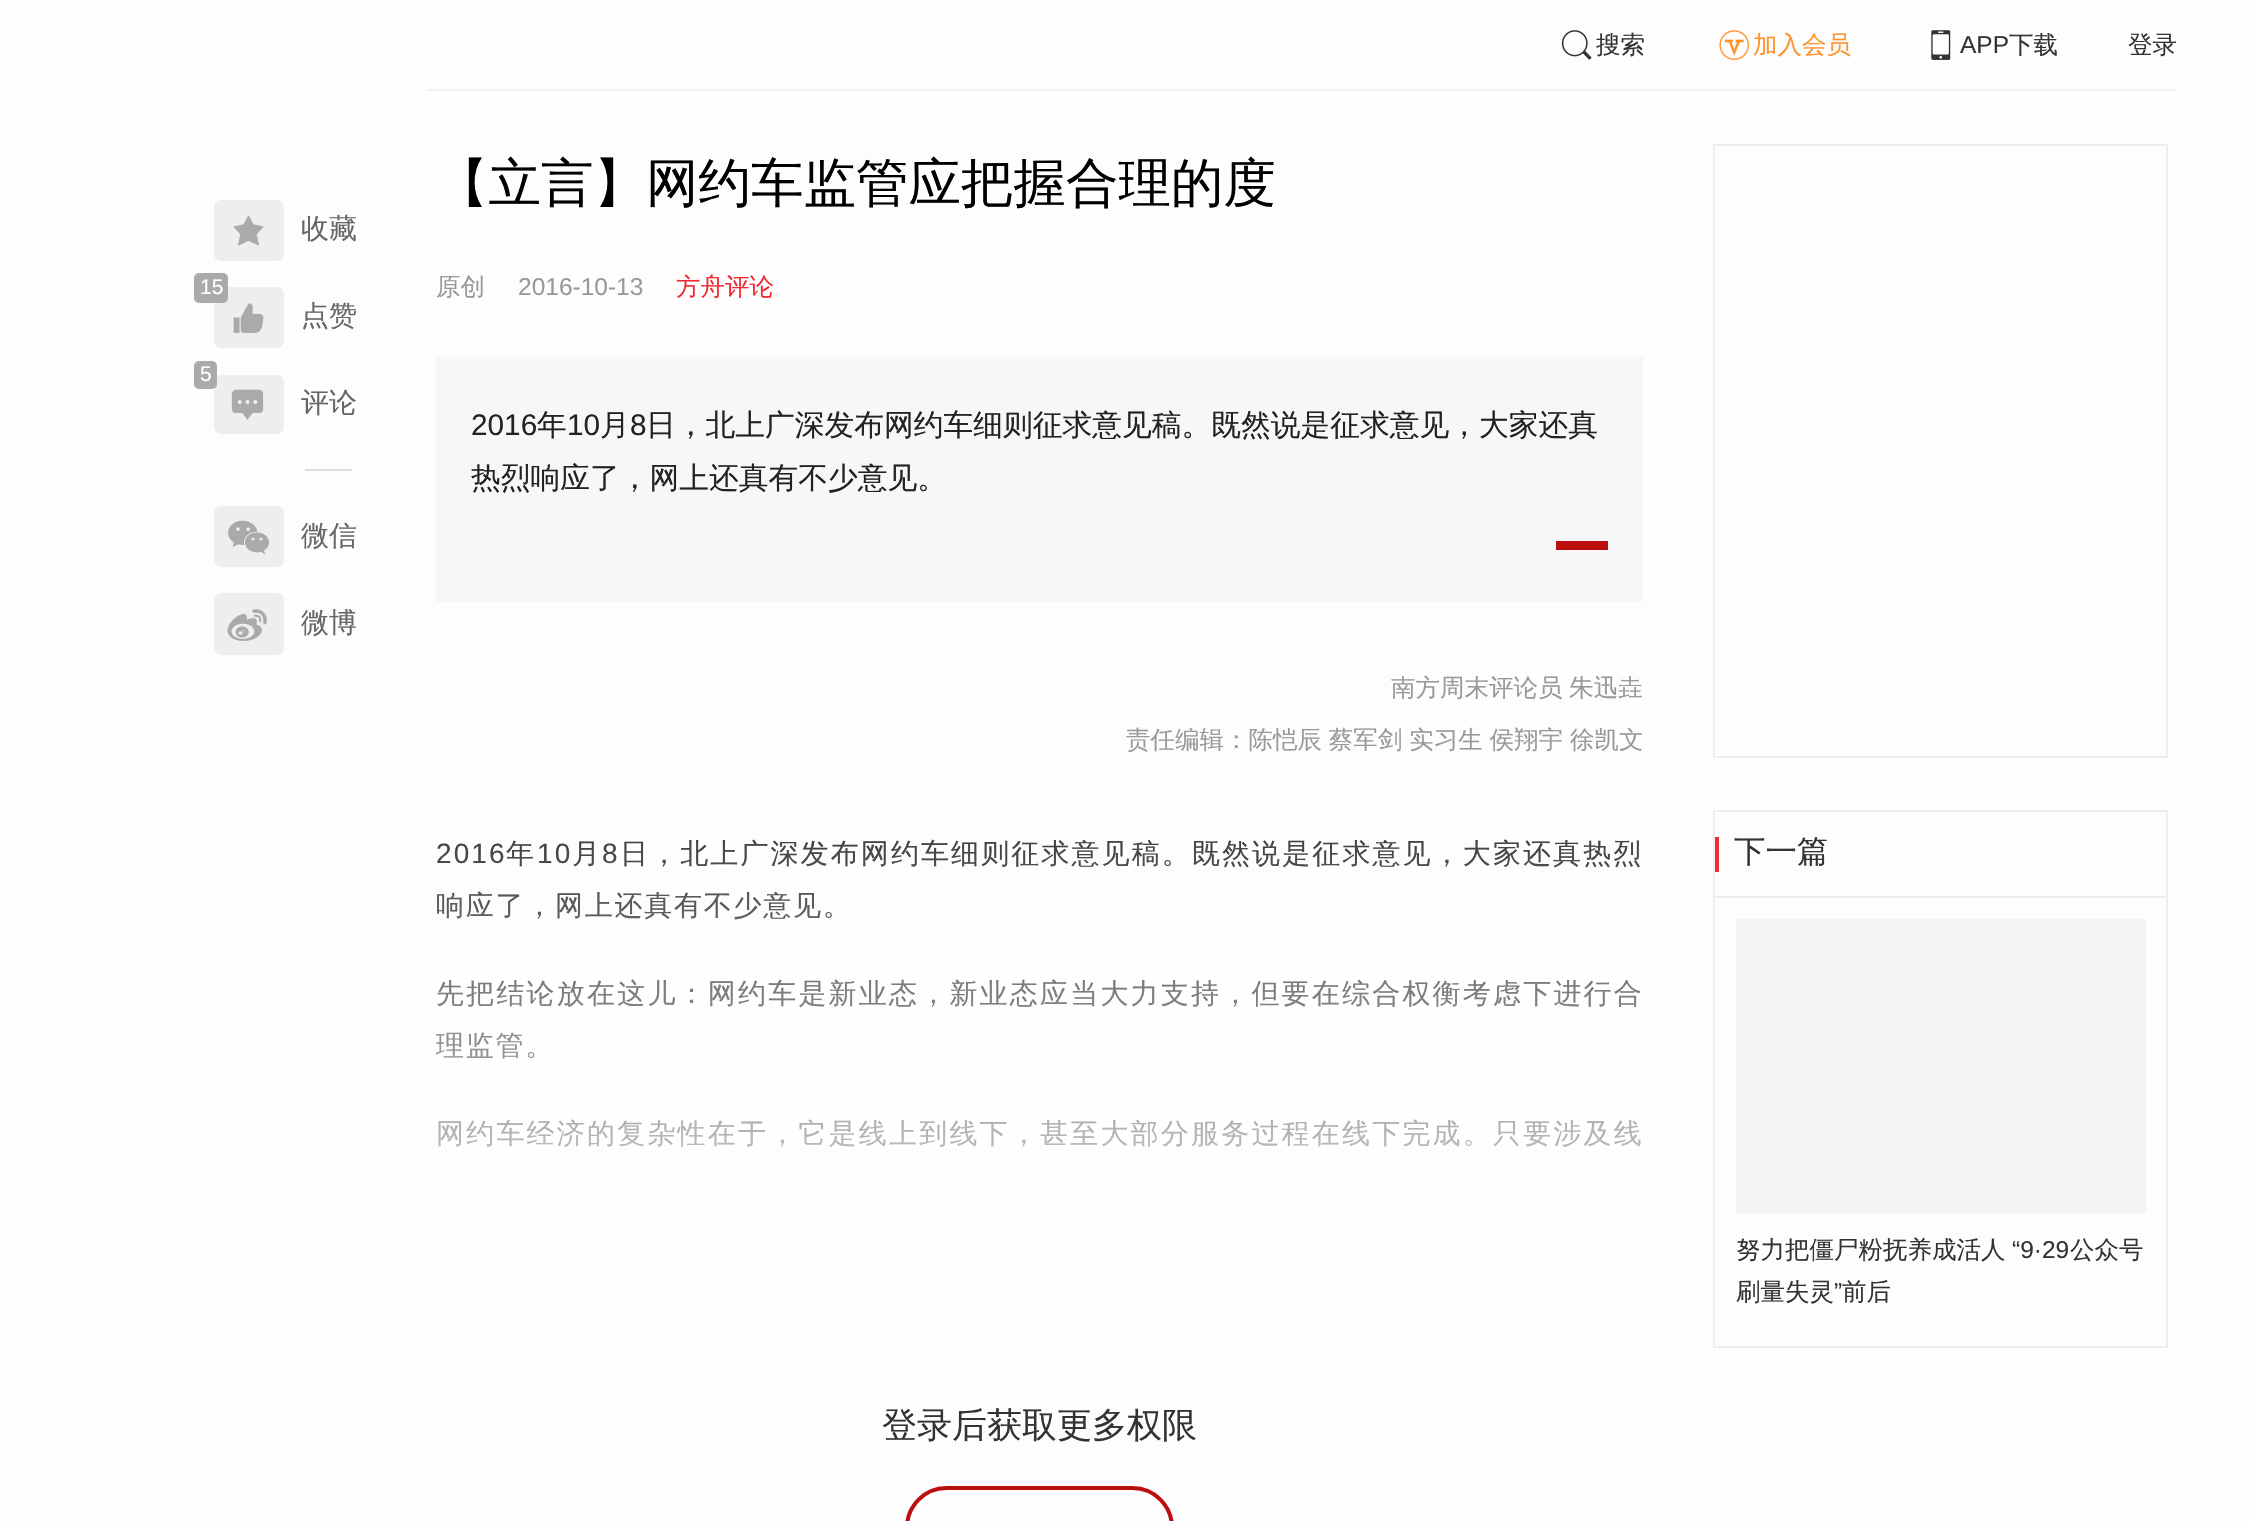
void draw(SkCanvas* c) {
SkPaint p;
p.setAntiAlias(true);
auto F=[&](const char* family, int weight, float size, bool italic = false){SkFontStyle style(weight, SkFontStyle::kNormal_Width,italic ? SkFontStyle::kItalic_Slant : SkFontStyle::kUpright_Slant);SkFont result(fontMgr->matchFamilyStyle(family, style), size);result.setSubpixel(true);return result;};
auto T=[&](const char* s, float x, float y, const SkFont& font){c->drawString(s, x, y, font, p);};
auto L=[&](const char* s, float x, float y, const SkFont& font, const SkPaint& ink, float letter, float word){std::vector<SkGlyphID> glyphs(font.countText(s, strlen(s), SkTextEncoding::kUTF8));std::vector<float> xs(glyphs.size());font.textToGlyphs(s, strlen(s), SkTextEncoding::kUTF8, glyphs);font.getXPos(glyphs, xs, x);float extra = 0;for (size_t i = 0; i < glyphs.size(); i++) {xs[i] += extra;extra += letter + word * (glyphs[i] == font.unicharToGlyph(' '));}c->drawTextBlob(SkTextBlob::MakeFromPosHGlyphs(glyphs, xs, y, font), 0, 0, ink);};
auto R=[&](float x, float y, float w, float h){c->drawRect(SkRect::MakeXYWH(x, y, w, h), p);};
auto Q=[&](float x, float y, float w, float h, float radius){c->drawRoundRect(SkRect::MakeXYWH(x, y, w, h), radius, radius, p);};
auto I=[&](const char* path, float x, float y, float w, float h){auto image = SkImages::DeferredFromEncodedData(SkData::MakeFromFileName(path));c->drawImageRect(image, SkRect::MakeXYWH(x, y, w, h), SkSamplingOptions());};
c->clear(0xfffdfdfd);
p.setColor(0xffeeeeee);
Q(214,200,70,61,7);
I("1.png",233,215,31,31);
auto f1 = F("WenQuanYi Zen Hei",500,28);
p.setColor(0xff666666);
T("收藏",301,238,f1);
p.setColor(0xffeeeeee);
Q(214,287,70,61,7);
p.setColor(0xffaaaaaa);
Q(194,273,34,30,5);
auto f2 = F("Liberation Sans",400,21);
p.setColor(0xffffffff);
T("15",200,294,f2);
I("2.png",233,303,31,30);
p.setColor(0xff666666);
T("点赞",301,325,f1);
p.setColor(0xffeeeeee);
Q(214,375,70,59,7);
p.setColor(0xffaaaaaa);
Q(194,361,23,28,5);
p.setColor(0xffffffff);
T("5",200,381,f2);
I("3.png",231,389,33,31);
p.setColor(0xff666666);
T("评论",301,412,f1);
p.setColor(0xffdddddd);
R(305,469,47,2);
p.setColor(0xffeeeeee);
Q(214,506,70,61,7);
I("4.png",228,520,41,35);
p.setColor(0xff666666);
T("微信",301,545,f1);
p.setColor(0xffeeeeee);
Q(214,593,70,62,7);
I("5.png",227,609,40,32);
p.setColor(0xff666666);
T("微博",301,632,f1);
p.setColor(0xfff2f2f2);
R(427,89,1750,2);
I("6.png",1561,30,31,30);
auto f3 = F("WenQuanYi Zen Hei",500,24.5);
p.setColor(0xff333333);
T("搜索",1596,53,f3);
I("7.png",1719,30,30,30);
p.setColor(0xffff932c);
T("加入会员",1753,53,f3);
I("8.png",1931,30,20,30);
auto f4 = F("Liberation Sans",400,24.5);
p.setColor(0xff333333);
T("APP",1960,53,f4);
T("下载",2009,53,f3);
T("登录",2128,53,f3);
auto f5 = F("WenQuanYi Zen Hei",500,52.5);
p.setColor(0xff000000);
T("【立言】网约车监管应把握合理的度",436,201,f5);
p.setColor(0xff999999);
T("原创",436,295,f3);
T("2016-10-13",518,295,f4);
p.setColor(0xffee2c34);
T("方舟评论",676,295,f3);
p.setColor(0xfff7f7f7);
R(436,357,1207,245);
auto f6 = F("Liberation Sans",400,29.75);
p.setColor(0xff222222);
T("2016",471,435,f6);
auto f7 = F("WenQuanYi Zen Hei",500,29.75);
T("年",537,435,f7);
T("10",567,435,f6);
T("月",600,435,f7);
T("8",630,435,f6);
T("日，北上广深发布网约车细则征求意见稿。既然说是征求意见，大家还真",646,435,f7);
T("热烈响应了，网上还真有不少意见。",471,488,f7);
p.setColor(0xffba1010);
R(1556,541,52,9);
p.setColor(0xff999999);
L("南方周末评论员 朱迅垚",1391,696,f3,p,0,-.5);
L("责任编辑：陈恺辰 蔡军剑 实习生 侯翔宇 徐凯文",1126,748,f3,p,0,-.5);
auto f8 = F("Liberation Sans",400,28);
p.setColor(0xff333333);
L("2016",436,863,f8,p,2.1,0);
L("年",506,863,f1,p,2.1,0);
L("10",537,863,f8,p,2.1,0);
L("月",572,863,f1,p,2.1,0);
L("8",602,863,f8,p,2.1,0);
L("日，北上广深发布网约车细则征求意见稿。既然说是征求意见，大家还真热烈",620,863,f1,p,2.1,0);
L("响应了，网上还真有不少意见。",436,915,f1,p,1.75,0);
L("先把结论放在这儿：网约车是新业态，新业态应当大力支持，但要在综合权衡考虑下进行合",436,1003,f1,p,2.2,0);
L("理监管。",436,1055,f1,p,1.75,0);
L("网约车经济的复杂性在于，它是线上到线下，甚至大部分服务过程在线下完成。只要涉及线",436,1143,f1,p,2.2,0);
{
const SkColor colors[] = {0xffffffff,0x00ffffff};
const float stops[] = {0,1};
const SkPoint ends[] = {{1040,1327}, {1040,802}};
p.setShader(SkGradientShader::MakeLinear(ends, colors, stops, 2, SkTileMode::kClamp));
p.setAlpha(255);
}
R(436,839,1205,309);
auto f9 = F("WenQuanYi Zen Hei",500,35);
p.setShader(nullptr);
p.setColor(0xff333333);
T("登录后获取更多权限",882,1437,f9);
p.setStroke(true);
p.setStrokeWidth(4);
p.setColor(0xffba1010);
c->drawRoundRect(SkRect::MakeXYWH(907,1488,265,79),41.5,41.5,p);
p.setStrokeWidth(2);
p.setColor(0xffeeeeee);
c->drawRect(SkRect::MakeXYWH(1714,145,453,612),p);
c->drawRect(SkRect::MakeXYWH(1714,811,453,536),p);
p.setStroke(false);
R(1715,896,452,2);
p.setColor(0xffee2c34);
R(1715,837,4,35);
auto f10 = F("WenQuanYi Zen Hei",500,31.5);
p.setColor(0xff333333);
T("下一篇",1734,862,f10);
p.setColor(0xfff3f3f3);
R(1736,919,410,294);
p.setColor(0xff333333);
T("努力把僵尸粉抚养成活人",1736,1258,f3);
T("“9·29",2012,1258,f4);
T("公众号",2070,1258,f3);
T("刷量失灵",1736,1300,f3);
T("”",1834,1300,f4);
T("前后",1842,1300,f3);
}
